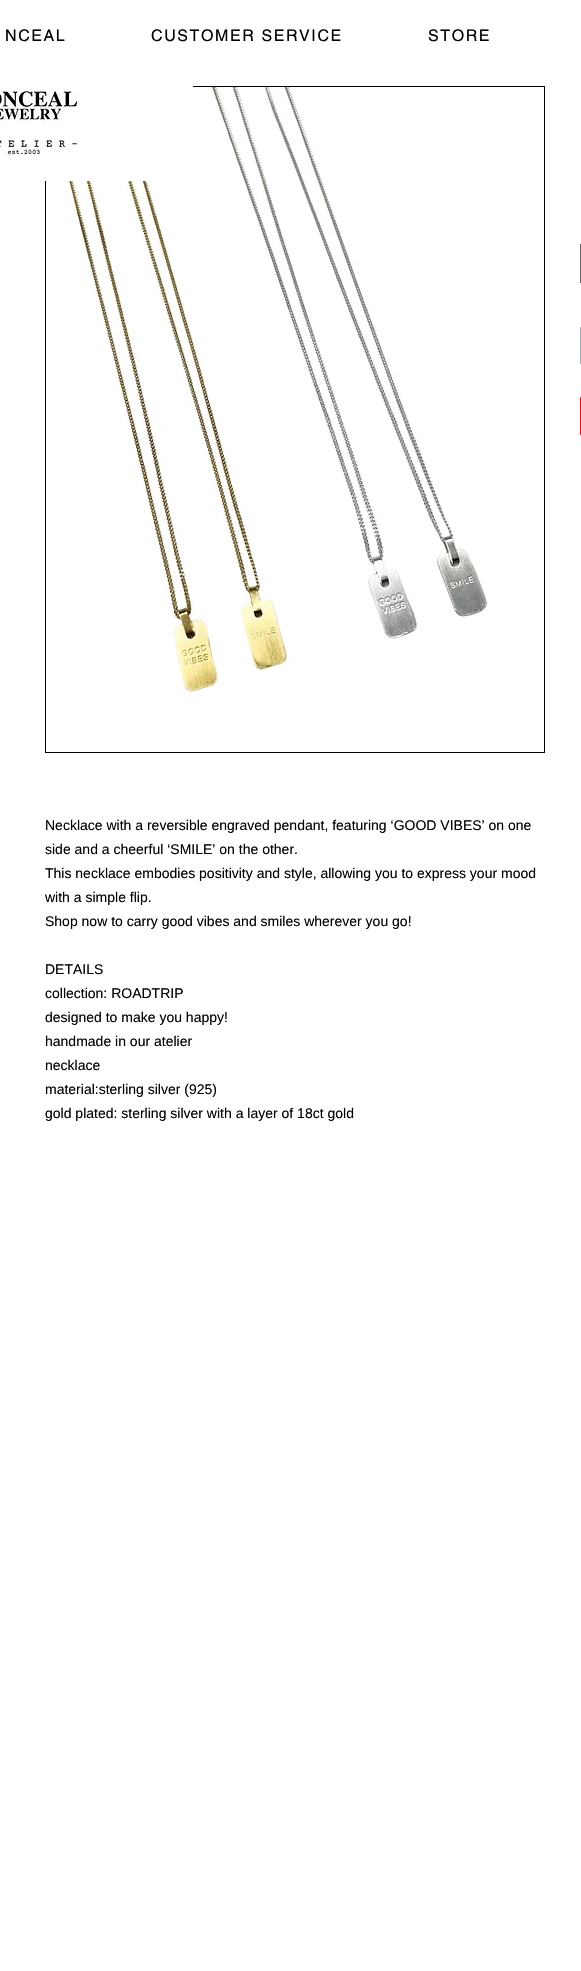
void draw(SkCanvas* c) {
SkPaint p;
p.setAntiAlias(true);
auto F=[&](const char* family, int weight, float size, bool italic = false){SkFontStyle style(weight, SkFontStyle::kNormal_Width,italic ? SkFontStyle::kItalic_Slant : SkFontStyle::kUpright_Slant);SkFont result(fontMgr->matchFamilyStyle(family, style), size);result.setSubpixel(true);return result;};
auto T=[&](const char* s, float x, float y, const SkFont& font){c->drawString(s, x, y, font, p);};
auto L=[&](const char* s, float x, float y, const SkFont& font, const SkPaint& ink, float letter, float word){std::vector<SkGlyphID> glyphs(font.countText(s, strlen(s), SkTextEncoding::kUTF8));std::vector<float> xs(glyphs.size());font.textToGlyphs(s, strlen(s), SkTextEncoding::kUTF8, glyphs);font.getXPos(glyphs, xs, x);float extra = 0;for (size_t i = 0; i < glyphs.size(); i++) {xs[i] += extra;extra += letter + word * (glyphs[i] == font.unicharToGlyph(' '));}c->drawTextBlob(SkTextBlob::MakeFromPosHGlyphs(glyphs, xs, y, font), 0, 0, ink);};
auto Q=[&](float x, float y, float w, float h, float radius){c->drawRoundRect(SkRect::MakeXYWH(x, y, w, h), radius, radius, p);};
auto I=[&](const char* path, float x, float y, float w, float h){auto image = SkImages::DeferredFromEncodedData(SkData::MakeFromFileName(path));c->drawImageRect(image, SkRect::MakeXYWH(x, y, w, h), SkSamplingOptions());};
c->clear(0xffffffff);
auto f1 = F("helvetica",400,16);
p.setColor(0xff000000);
L("NCEAL",5,41,f1,p,1.6,0);
L("CUSTOMER SERVICE",151,41,f1,p,1.6,0);
L("STORE",428,41,f1,p,1.6,0);
p.setStroke(true);
p.setStrokeWidth(1);
c->drawRect(SkRect::MakeXYWH(45.5,86.5,499,666),p);
I("2.png",46,87,444,605);
I("1.png",0,86,193,95);
p.setColor(0xff666666);
c->drawRect(SkRect::MakeXYWH(580.5,244.5,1,38),p);
p.setColor(0xff98abad);
c->drawRect(SkRect::MakeXYWH(580.5,327.5,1,36),p);
p.setStroke(false);
p.setColor(0xfffc0808);
Q(580,396,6,40,5);
auto f2 = F("Liberation Sans",400,14);
p.setColor(0xff000000);
T("Necklace with a reversible engraved pendant, featuring ‘GOOD VIBES’ on one",45,830,f2);
T("side and a cheerful ‘SMILE’ on the other.",45,854,f2);
T("This necklace embodies positivity and style, allowing you to express your mood",45,878,f2);
T("with a simple flip.",45,902,f2);
T("Shop now to carry good vibes and smiles wherever you go!",45,926,f2);
T("DETAILS",45,974,f2);
T("collection: ROADTRIP",45,998,f2);
T("designed to make you happy!",45,1022,f2);
T("handmade in our atelier",45,1046,f2);
T("necklace",45,1070,f2);
T("material:sterling silver (925)",45,1094,f2);
T("gold plated: sterling silver with a layer of 18ct gold",45,1118,f2);
}
